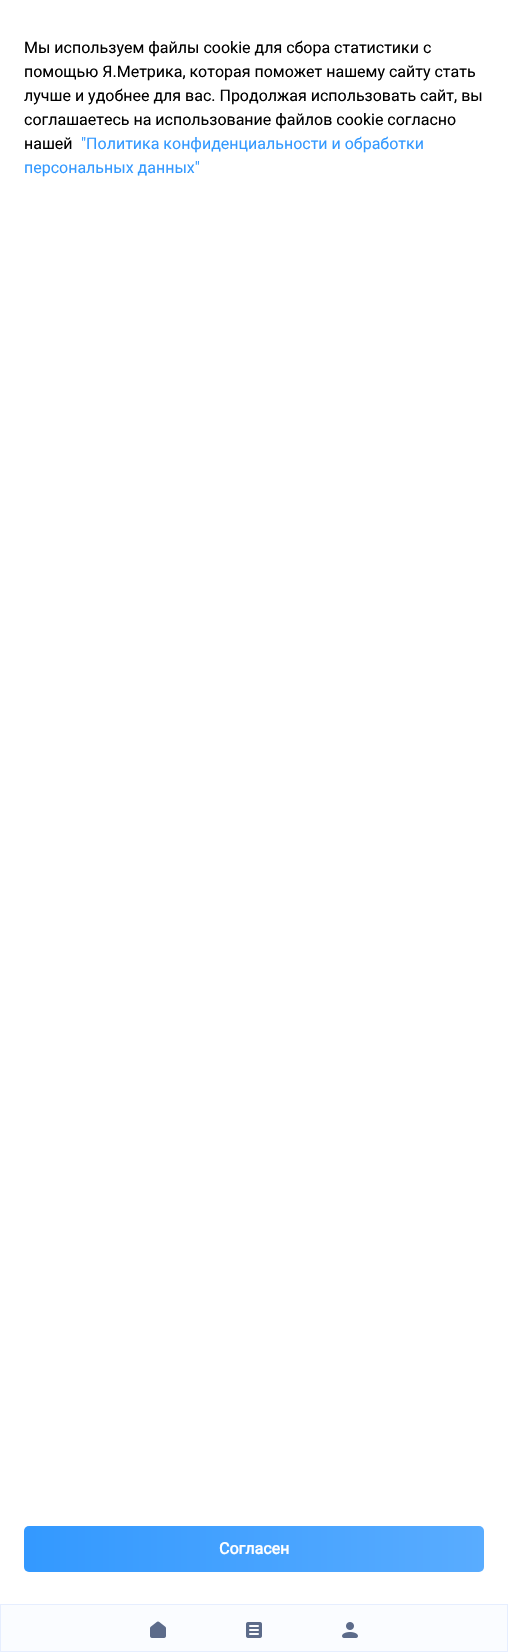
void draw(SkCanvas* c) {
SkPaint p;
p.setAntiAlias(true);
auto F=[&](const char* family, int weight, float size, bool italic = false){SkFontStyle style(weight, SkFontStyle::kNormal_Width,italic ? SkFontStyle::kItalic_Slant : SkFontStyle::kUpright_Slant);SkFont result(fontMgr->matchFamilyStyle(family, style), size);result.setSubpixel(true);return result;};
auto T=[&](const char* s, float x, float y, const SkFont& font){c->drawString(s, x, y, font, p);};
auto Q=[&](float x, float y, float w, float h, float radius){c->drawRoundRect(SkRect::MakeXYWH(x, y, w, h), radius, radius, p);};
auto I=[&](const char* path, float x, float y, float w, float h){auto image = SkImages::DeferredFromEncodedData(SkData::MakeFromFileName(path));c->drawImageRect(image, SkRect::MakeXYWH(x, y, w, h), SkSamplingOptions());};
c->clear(0xffffffff);
auto f1 = F("Roboto",400,16);
p.setColor(0xff000000);
T("Мы используем файлы cookie для сбора статистики с",24,53,f1);
T("помощью Я.Метрика, которая поможет нашему сайту стать",24,77,f1);
T("лучше и удобнее для вас. Продолжая использовать сайт, вы",24,101,f1);
T("соглашаетесь на использование файлов cookie согласно",24,125,f1);
T("нашей",24,149,f1);
p.setColor(0xff3399ff);
T("\"Политика конфиденциальности и обработки",81,149,f1);
T("персональных данных\"",24,173,f1);
{
const SkColor colors[] = {0xff3399ff,0xff59acff};
const float stops[] = {0,1};
const SkPoint ends[] = {{24,1549}, {484,1549}};
p.setShader(SkGradientShader::MakeLinear(ends, colors, stops, 2, SkTileMode::kClamp));
p.setAlpha(255);
}
Q(24,1526,460,46,5);
auto f2 = F("Roboto",700,16);
p.setShader(nullptr);
p.setColor(0xffffffff);
T("Согласен",219,1554,f2);
p.setColor(0xfffafcff);
c->drawRect(SkRect::MakeXYWH(.5,1604.5,507,47),p);
p.setStroke(true);
p.setStrokeWidth(1);
p.setColor(0xffe6eeff);
c->drawRect(SkRect::MakeXYWH(.5,1604.5,507,47),p);
I("1.png",150,1621,16,17);
I("2.png",246,1622,16,16);
I("3.png",342,1622,16,16);
}
